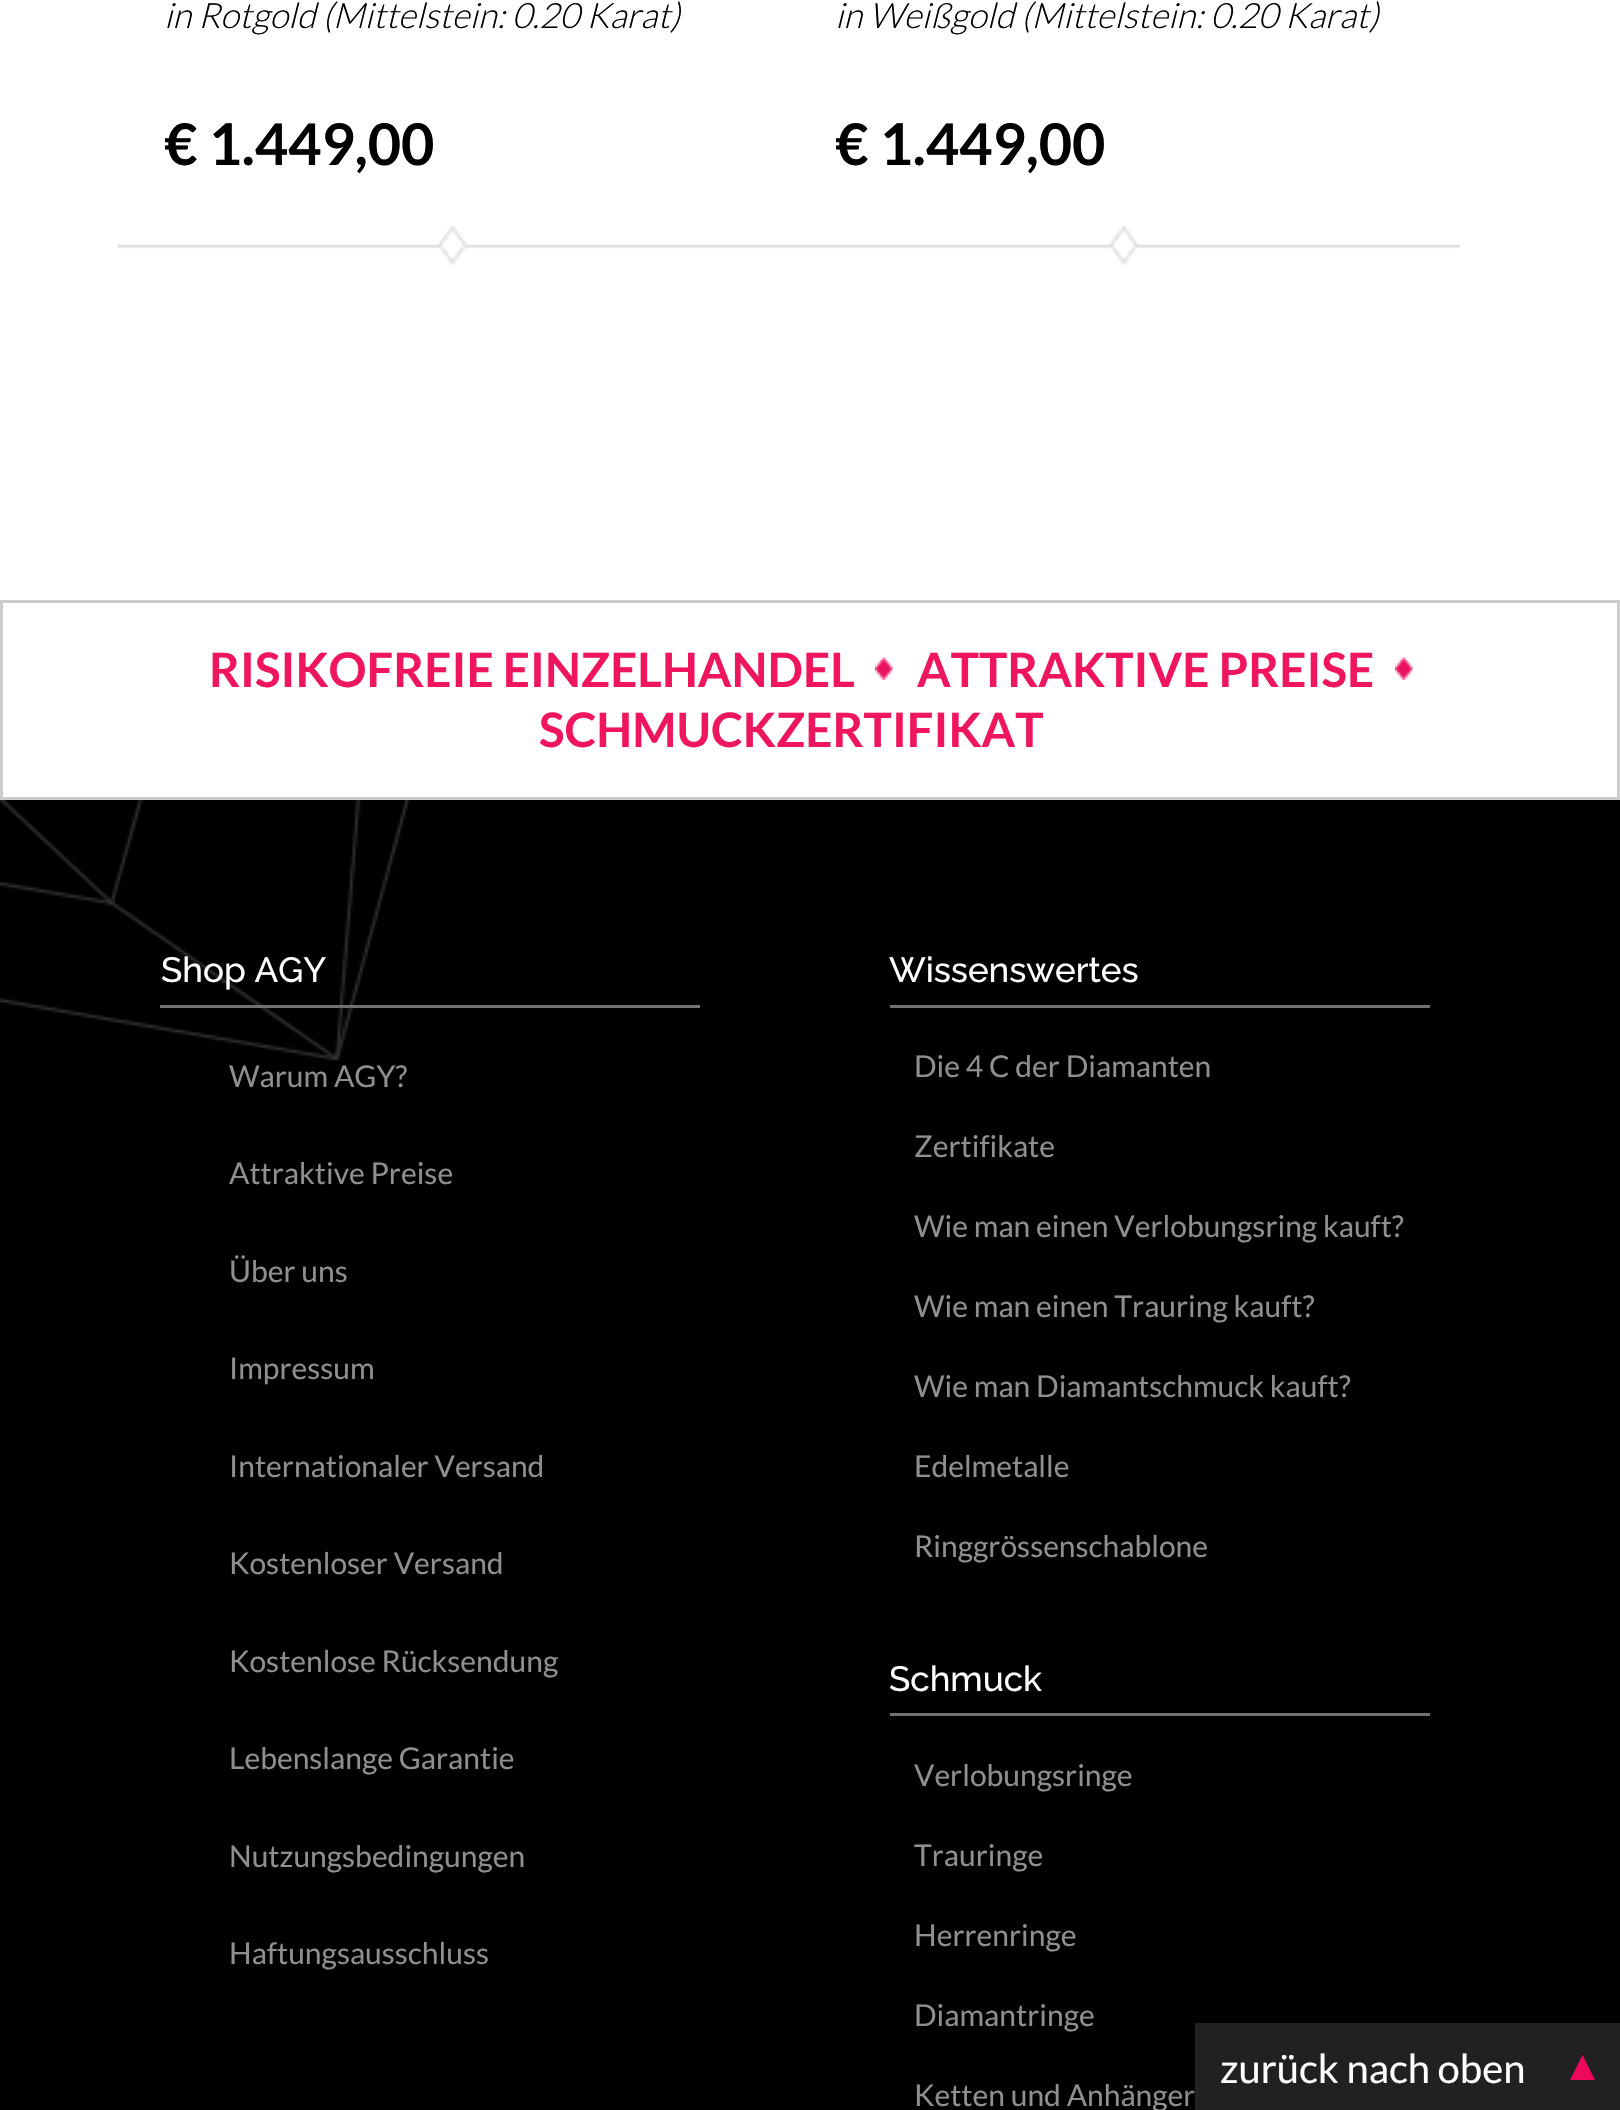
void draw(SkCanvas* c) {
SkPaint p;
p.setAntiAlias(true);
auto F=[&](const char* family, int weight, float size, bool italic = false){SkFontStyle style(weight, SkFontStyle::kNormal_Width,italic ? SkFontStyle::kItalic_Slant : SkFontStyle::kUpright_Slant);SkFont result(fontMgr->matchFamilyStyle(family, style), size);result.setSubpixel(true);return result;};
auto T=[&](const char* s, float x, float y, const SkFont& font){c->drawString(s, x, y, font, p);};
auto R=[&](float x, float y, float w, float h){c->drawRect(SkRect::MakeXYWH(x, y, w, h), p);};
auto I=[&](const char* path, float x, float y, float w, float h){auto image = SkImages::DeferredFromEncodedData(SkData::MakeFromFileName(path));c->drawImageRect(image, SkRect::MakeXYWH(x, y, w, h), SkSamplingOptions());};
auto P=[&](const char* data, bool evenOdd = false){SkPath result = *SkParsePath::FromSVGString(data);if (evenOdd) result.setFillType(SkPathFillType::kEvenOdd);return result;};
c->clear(0xffffffff);
I("1.png",117,225,673,40);
auto f1 = F("Lato",300,35,true);
p.setColor(0xff000000);
T("in Rotgold (Mittelstein: 0.20 Karat)",164,28,f1);
auto f2 = F("Lato",700,57.5);
T("€ 1.449,00",164,165,f2);
I("2.png",790,225,670,40);
T("in Weißgold (Mittelstein: 0.20 Karat)",835,28,f1);
T("€ 1.449,00",835,165,f2);
p.setStroke(true);
p.setStrokeWidth(3);
p.setColor(0xffcccccc);
c->drawRect(SkRect::MakeXYWH(1.5,601.5,1617,197),p);
I("3.png",875,657,18,23);
auto f3 = F("Lato",700,47.5);
p.setStroke(false);
p.setColor(0xffef165d);
T("RISIKOFREIE EINZELHANDEL",209,687,f3);
I("3.png",1395,657,18,23);
T("ATTRAKTIVE PREISE",917,687,f3);
T("SCHMUCKZERTIFIKAT",539,747,f3);
p.setColor(0xff000000);
R(0,800,1620,1310);
I("4.png",0,800,410,261);
p.setColor(0xff717171);
R(160,1005,540,3);
auto f4 = F("Raleway",500,35);
p.setColor(0xffffffff);
T("Shop AGY",161,982,f4);
auto f5 = F("Lato",400,30);
p.setColor(0xff8f8f8f);
T("Warum AGY?",229,1087,f5);
T("Attraktive Preise",229,1184,f5);
T("Über uns",229,1282,f5);
T("Impressum",229,1379,f5);
T("Internationaler Versand",229,1477,f5);
T("Kostenloser Versand",229,1574,f5);
T("Kostenlose Rücksendung",229,1672,f5);
T("Lebenslange Garantie",229,1769,f5);
T("Nutzungsbedingungen",229,1867,f5);
T("Haftungsausschluss",229,1964,f5);
p.setColor(0xff717171);
R(890,1005,540,3);
p.setColor(0xffffffff);
T("Wissenswertes",889,982,f4);
p.setColor(0xff8f8f8f);
T("Die 4 C der Diamanten",914,1077,f5);
T("Zertifikate",914,1157,f5);
T("Wie man einen Verlobungsring kauft?",914,1237,f5);
T("Wie man einen Trauring kauft?",914,1317,f5);
T("Wie man Diamantschmuck kauft?",914,1397,f5);
T("Edelmetalle",914,1477,f5);
T("Ringgrössenschablone",914,1557,f5);
p.setColor(0xff717171);
R(890,1713,540,3);
p.setColor(0xffffffff);
T("Schmuck",889,1691,f4);
p.setColor(0xff8f8f8f);
T("Verlobungsringe",914,1786,f5);
T("Trauringe",914,1866,f5);
T("Herrenringe",914,1946,f5);
T("Diamantringe",914,2026,f5);
T("Ketten und Anhänger",914,2106,f5);
p.setColor(0x73000000);
p.setMaskFilter(SkMaskFilter::MakeBlur(kNormal_SkBlurStyle, 5));
c->drawRect(SkRect::MakeXYWH(1195,2023,425,87),p);
p.setMaskFilter(nullptr);
p.setColor(0xff212121);
R(1195,2023,425,87);
auto f6 = F("Lato",400,40);
p.setColor(0xffffffff);
T("zurück nach oben",1220,2083,f6);
p.setColor(0xffee095d);
c->drawPath(P("M1595 2080h-25l12.5-25z"),p);
}
